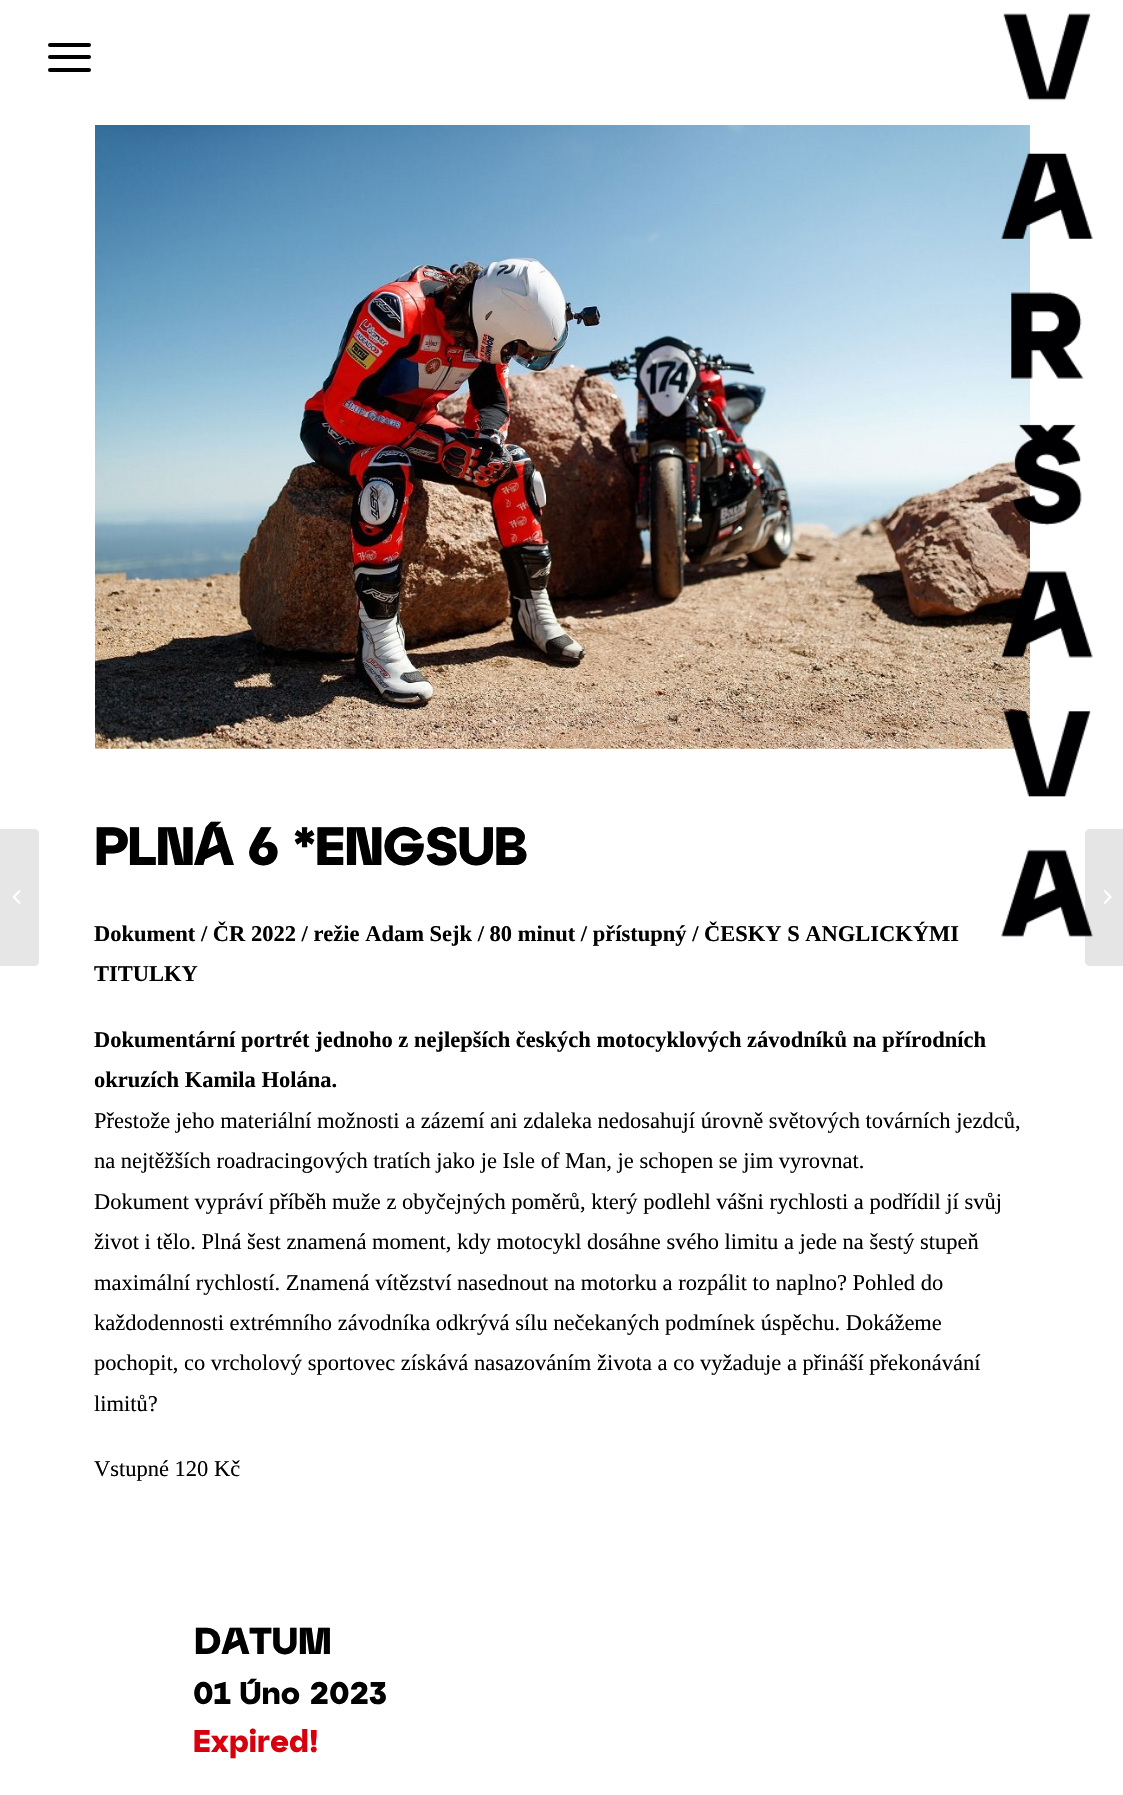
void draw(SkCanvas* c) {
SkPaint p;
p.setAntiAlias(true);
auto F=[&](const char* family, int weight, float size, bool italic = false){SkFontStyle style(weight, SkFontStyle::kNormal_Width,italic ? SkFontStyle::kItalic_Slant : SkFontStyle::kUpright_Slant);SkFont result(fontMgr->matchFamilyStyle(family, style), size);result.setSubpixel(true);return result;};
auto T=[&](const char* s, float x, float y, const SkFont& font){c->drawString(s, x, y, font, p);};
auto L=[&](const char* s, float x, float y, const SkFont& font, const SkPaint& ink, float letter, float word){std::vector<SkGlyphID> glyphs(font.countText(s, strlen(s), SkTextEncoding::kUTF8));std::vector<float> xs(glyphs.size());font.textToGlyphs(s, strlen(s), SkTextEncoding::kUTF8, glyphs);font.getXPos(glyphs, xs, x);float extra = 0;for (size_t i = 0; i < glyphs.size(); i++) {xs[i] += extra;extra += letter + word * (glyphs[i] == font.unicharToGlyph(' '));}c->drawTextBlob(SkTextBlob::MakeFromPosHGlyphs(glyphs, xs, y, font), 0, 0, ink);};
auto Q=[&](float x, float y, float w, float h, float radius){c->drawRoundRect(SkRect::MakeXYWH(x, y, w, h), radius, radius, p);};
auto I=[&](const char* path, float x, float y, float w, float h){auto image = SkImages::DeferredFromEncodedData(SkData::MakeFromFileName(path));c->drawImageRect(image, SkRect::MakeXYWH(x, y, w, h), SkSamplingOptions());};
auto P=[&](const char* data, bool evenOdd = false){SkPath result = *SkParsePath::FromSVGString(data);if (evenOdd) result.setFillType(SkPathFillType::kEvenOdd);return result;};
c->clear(0xffffffff);
p.setColor(0xff000000);
Q(48,55,43,4,2);
Q(48,43,43,4,2);
Q(48,68,43,4,2);
I("3.png",95,125,935,624);
I("1.png",1001,13,92,924);
p.setColor(0xffe6e6e6);
c->drawPath(P("M0 829h34c3 0 5 2 5 5v127c0 3-2 5-5 5h-34z"),p);
I("2.png",12,890,9,14);
auto f1 = F("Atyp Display",700,53.75);
p.setColor(0xff000000);
L("PLNÁ 6 *ENGSUB",94,865,f1,p,-1.25,0);
auto f2 = F("Liberation Serif",700,22.5);
T("Dokument / ČR 2022 / režie Adam Sejk / 80 minut / přístupný / ČESKY S ANGLICKÝMI",94,941,f2);
T("TITULKY",94,981,f2);
T("Dokumentární portrét jednoho z nejlepších českých motocyklových závodníků na přírodních",94,1047,f2);
T("okruzích Kamila Holána.",94,1087,f2);
auto f3 = F("Liberation Serif",400,22.5);
T("Přestože jeho materiální možnosti a zázemí ani zdaleka nedosahují úrovně světových továrních jezdců,",94,1128,f3);
T("na nejtěžších roadracingových tratích jako je Isle of Man, je schopen se jim vyrovnat.",94,1168,f3);
T("Dokument vypráví příběh muže z obyčejných poměrů, který podlehl vášni rychlosti a podřídil jí svůj",94,1209,f3);
T("život i tělo. Plná šest znamená moment, kdy motocykl dosáhne svého limitu a jede na šestý stupeň",94,1249,f3);
T("maximální rychlostí. Znamená vítězství nasednout na motorku a rozpálit to naplno? Pohled do",94,1290,f3);
T("každodennosti extrémního závodníka odkrývá sílu nečekaných podmínek úspěchu. Dokážeme",94,1330,f3);
T("pochopit, co vrcholový sportovec získává nasazováním života a co vyžaduje a přináší překonávání",94,1370,f3);
T("limitů?",94,1411,f3);
T("Vstupné 120 Kč",94,1476,f3);
auto f4 = F("Atyp Display",700,37.5);
T("DATUM",194,1654,f4);
auto f5 = F("Atyp Display",700,31.25);
T("01 Úno 2023",193,1704,f5);
p.setColor(0xffd8000c);
T("Expired!",193,1752,f5);
p.setColor(0x1a000000);
c->drawPath(P("M1090 829h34v137h-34c-3 0-5-2-5-5v-127c0-3 2-5 5-5z"),p);
I("4.png",1104,890,8,14);
}
